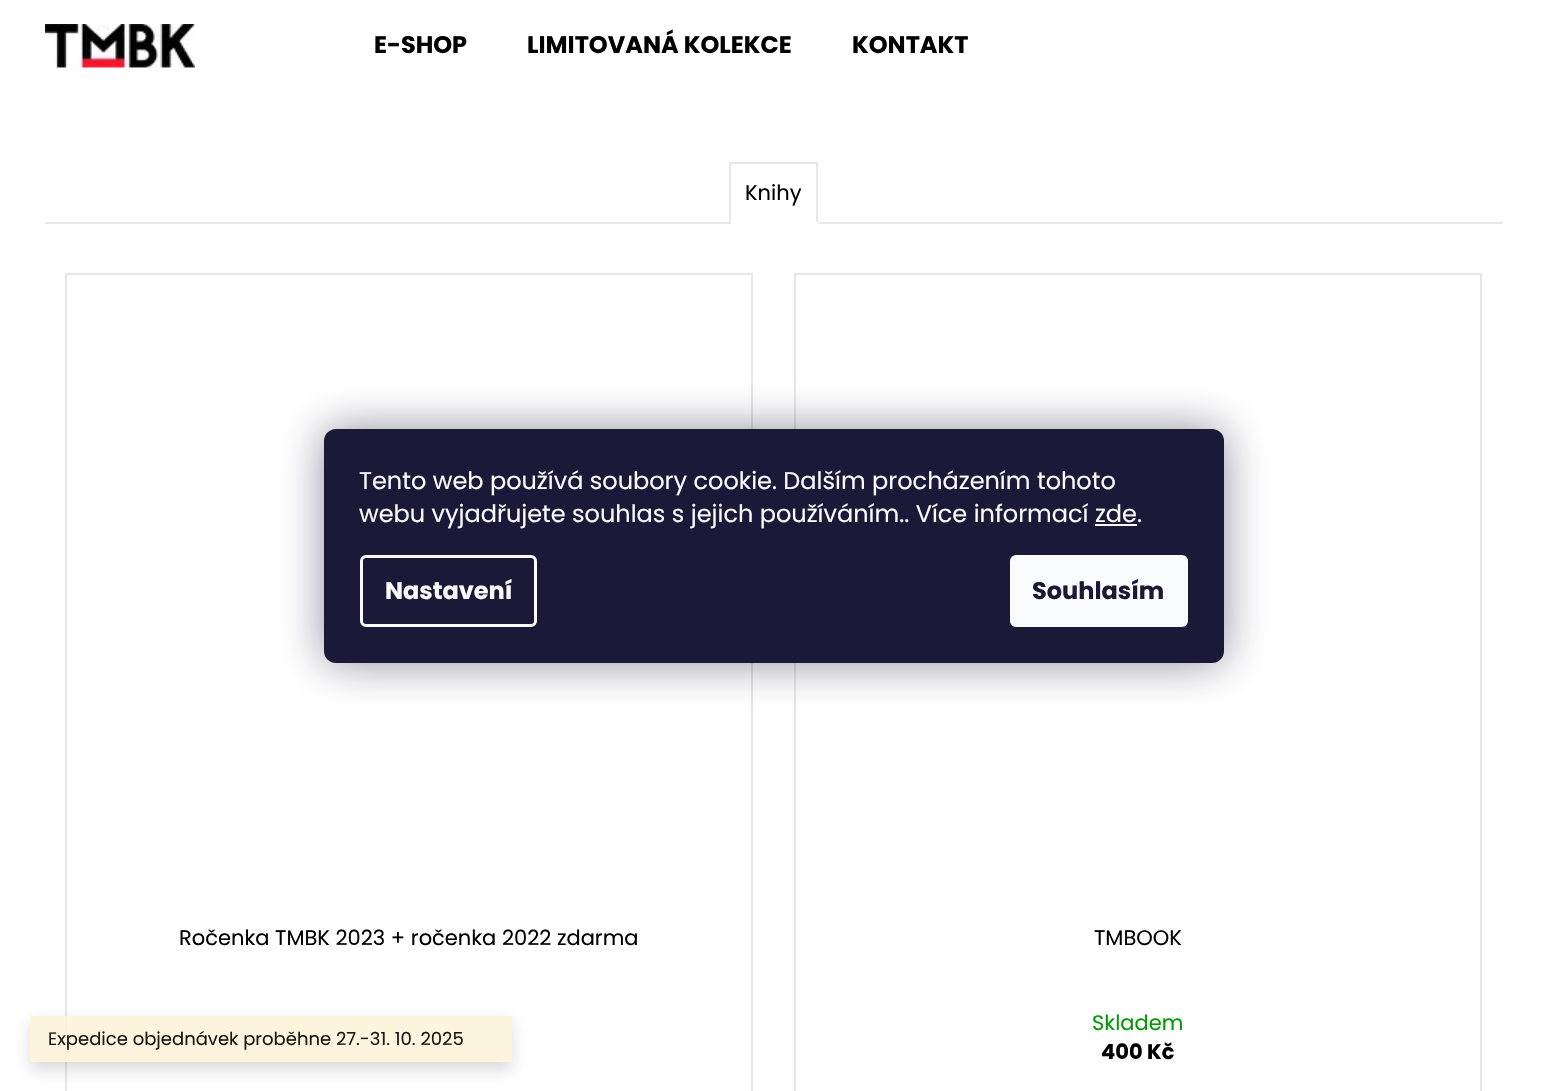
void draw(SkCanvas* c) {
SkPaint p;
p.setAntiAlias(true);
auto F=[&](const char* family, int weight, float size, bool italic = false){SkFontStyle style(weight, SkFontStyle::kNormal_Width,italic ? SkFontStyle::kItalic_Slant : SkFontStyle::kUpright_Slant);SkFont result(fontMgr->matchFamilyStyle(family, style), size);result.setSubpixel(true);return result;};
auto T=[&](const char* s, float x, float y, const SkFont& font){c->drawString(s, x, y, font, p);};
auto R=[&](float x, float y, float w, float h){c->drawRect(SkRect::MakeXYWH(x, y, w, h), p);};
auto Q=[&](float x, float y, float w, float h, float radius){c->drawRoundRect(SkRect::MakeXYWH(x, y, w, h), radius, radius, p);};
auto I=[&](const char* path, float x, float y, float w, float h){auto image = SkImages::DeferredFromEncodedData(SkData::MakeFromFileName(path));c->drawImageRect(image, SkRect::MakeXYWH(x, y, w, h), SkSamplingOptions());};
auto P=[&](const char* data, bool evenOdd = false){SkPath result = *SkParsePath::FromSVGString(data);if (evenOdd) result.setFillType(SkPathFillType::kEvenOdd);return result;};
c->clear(0xffffffff);
I("1.png",45,24,150,44);
auto f1 = F("Poppins",700,24);
p.setColor(0xff000000);
T("E-SHOP",374,53,f1);
T("LIMITOVANÁ KOLEKCE",527,53,f1);
T("KONTAKT",852,53,f1);
p.setColor(0xffe7e7e7);
R(45,222,1458,2);
R(729,162,89,2);
R(816,162,2,62);
p.setColor(0xffffffff);
R(729,222,89,2);
p.setColor(0xffe7e7e7);
R(729,162,2,62);
auto f2 = F("Poppins",400,21);
p.setColor(0xff000000);
T("Knihy",745,200,f2);
p.setStroke(true);
p.setStrokeWidth(2);
p.setColor(0xffe6e6e6);
c->drawRect(SkRect::MakeXYWH(66,274,686,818),p);
p.setStroke(false);
p.setColor(0xff000000);
T("Ročenka TMBK 2023 + ročenka 2022 zdarma",179,945,f2);
p.setStroke(true);
p.setColor(0xffe6e6e6);
c->drawRect(SkRect::MakeXYWH(795,274,686,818),p);
p.setStroke(false);
p.setColor(0xff000000);
T("TMBOOK",1094,945,f2);
p.setColor(0xff009901);
T("Skladem",1092,1030,f2);
auto f3 = F("Poppins",700,21);
p.setColor(0xff000000);
T("400 Kč",1101,1059,f3);
c->save();
c->clipPath(P("M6 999h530v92h-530zm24 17h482v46h-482z",true),true);
p.setColor(0x24000000);
p.setMaskFilter(SkMaskFilter::MakeBlur(kNormal_SkBlurStyle, 7.5));
c->drawRect(SkRect::MakeXYWH(30,1023,482,47),p);
p.setMaskFilter(nullptr);
c->restore();
p.setColor(0xe6fdf3da);
R(30,1016,482,46);
auto f4 = F("Poppins",400,18);
p.setColor(0xff191816);
T("Expedice objednávek proběhne 27.-31. 10. 2025",48,1045,f4);
p.setColor(0x801b1939);
p.setMaskFilter(SkMaskFilter::MakeBlur(kNormal_SkBlurStyle, 22.5));
c->drawRoundRect(SkRect::MakeXYWH(324,429,900,234),12,12,p);
p.setMaskFilter(nullptr);
p.setColor(0xff1a1937);
Q(324,429,900,234,12);
auto f5 = F("Poppins",400,24);
p.setColor(0xfff8fafb);
T("Tento web používá soubory cookie. Dalším procházením tohoto",359,489,f5);
T("webu vyjadřujete souhlas s jejich používáním.. Více informací zde.",359,522,f5);
R(1095,524,42,2);
p.setStroke(true);
p.setStrokeWidth(3);
c->drawRoundRect(SkRect::MakeXYWH(361.5,556.5,174,69),4.5,4.5,p);
p.setStroke(false);
T("Nastavení",385,599,f1);
Q(1010,555,178,72,6);
p.setColor(0xff1a1937);
T("Souhlasím",1032,599,f1);
}
